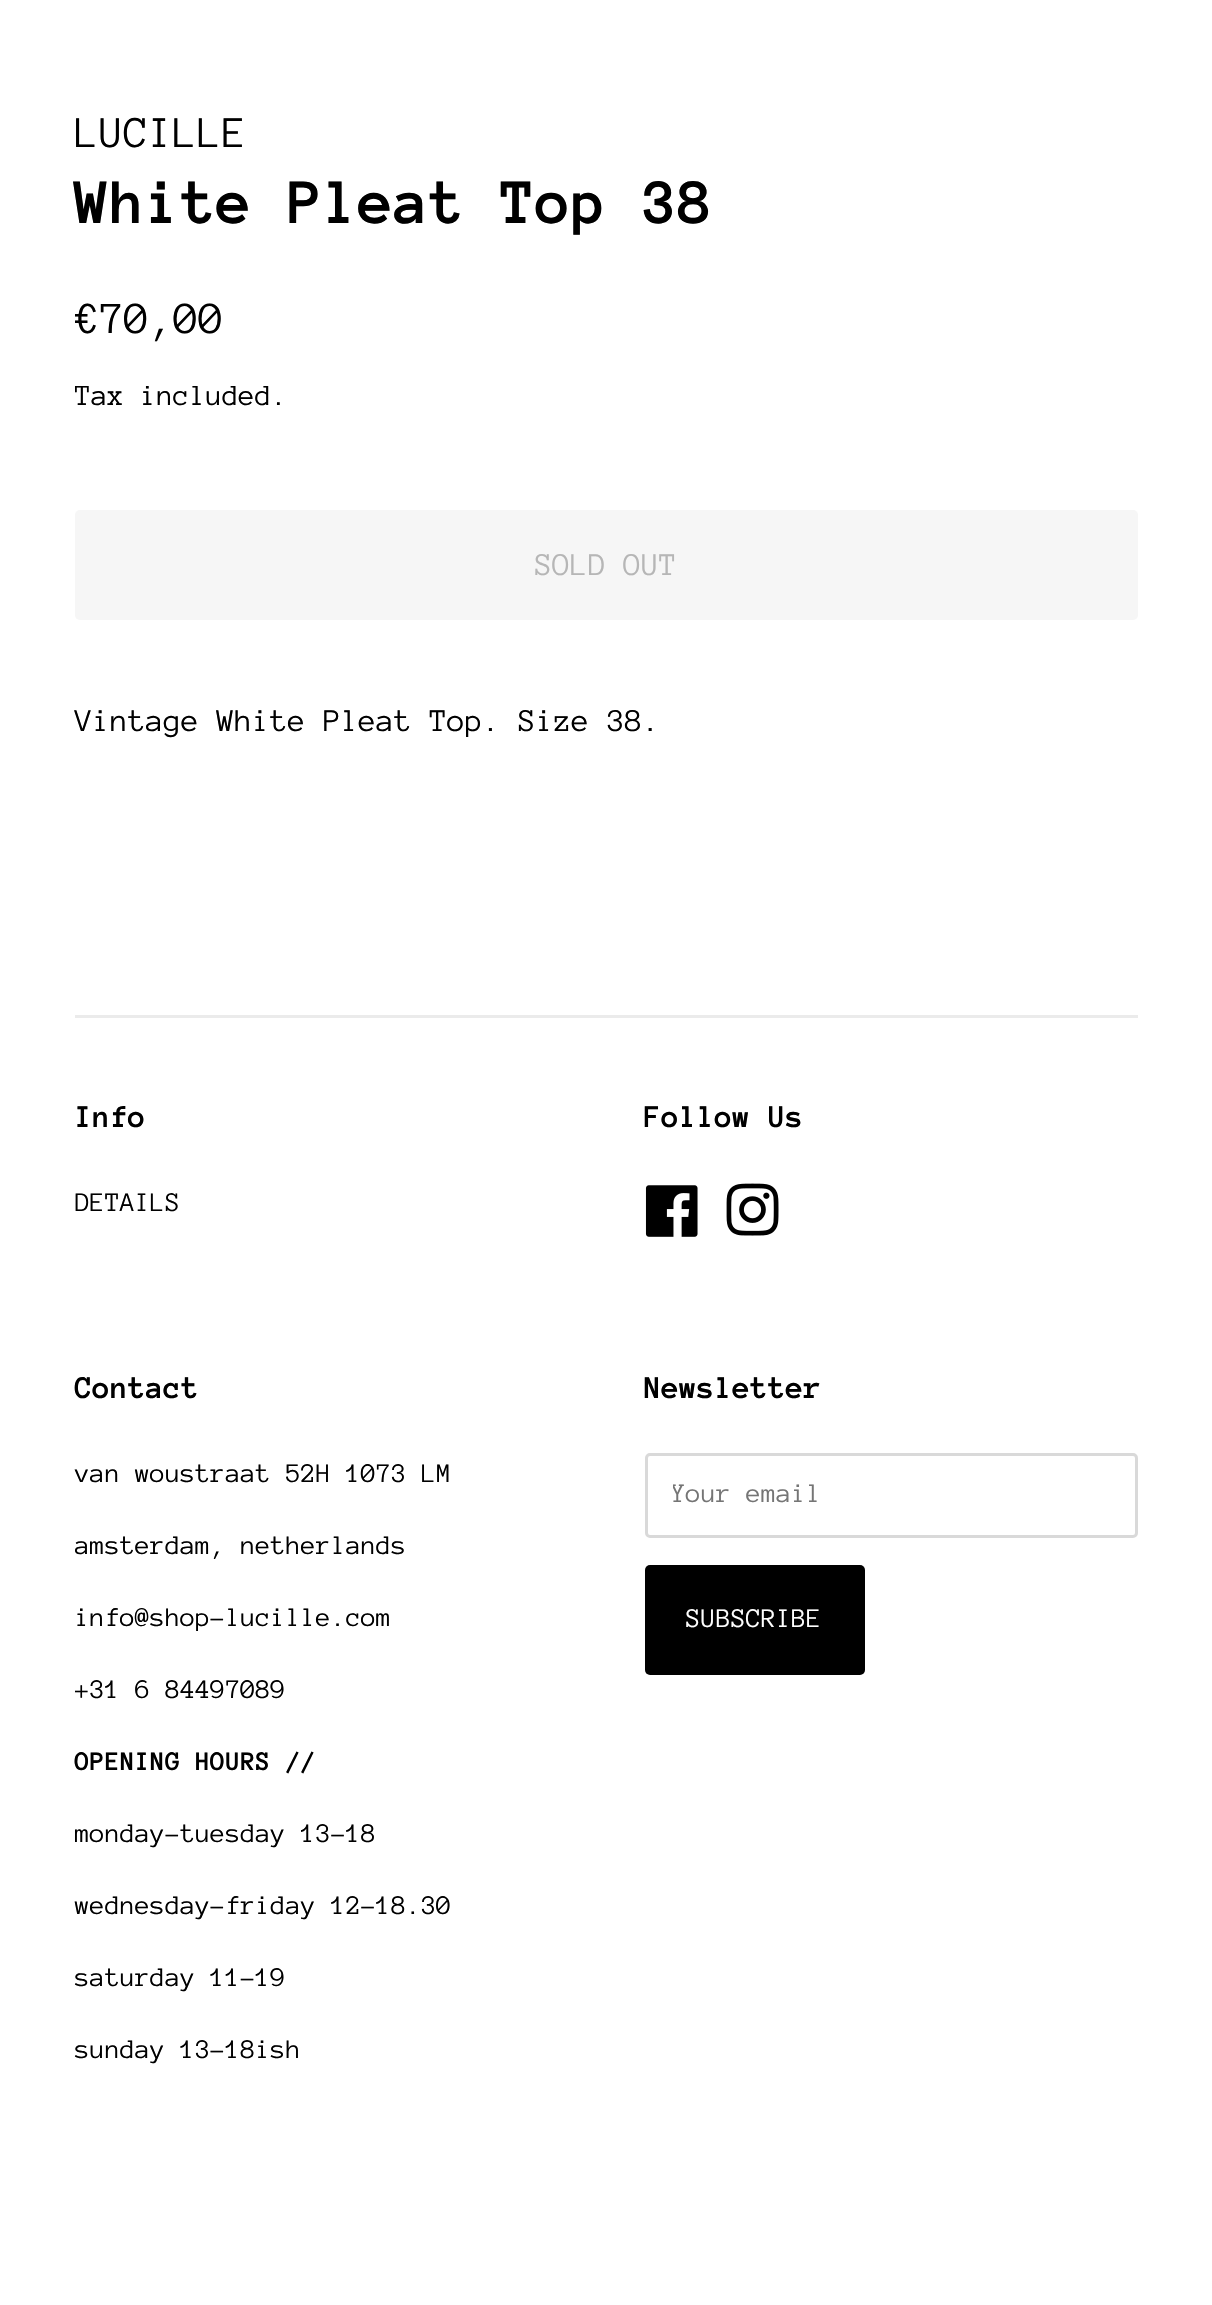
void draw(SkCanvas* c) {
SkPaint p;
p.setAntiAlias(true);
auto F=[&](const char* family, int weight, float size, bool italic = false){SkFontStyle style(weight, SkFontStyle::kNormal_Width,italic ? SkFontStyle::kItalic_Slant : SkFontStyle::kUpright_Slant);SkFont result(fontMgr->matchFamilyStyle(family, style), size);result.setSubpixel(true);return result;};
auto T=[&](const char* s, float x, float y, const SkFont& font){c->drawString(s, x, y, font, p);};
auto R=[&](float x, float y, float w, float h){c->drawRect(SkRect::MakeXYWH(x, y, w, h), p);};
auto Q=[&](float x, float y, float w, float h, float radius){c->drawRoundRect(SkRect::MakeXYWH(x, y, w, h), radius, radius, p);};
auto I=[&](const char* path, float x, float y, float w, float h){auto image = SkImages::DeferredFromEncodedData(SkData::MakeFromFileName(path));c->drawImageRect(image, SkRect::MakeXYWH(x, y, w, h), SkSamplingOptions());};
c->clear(0xffffffff);
auto f1 = F("Anonymous Pro",400,45);
p.setColor(0xff000000);
T("LUCILLE",75,147,f1);
auto f2 = F("Anonymous Pro",700,65);
T("White Pleat Top 38",75,223,f2);
auto f3 = F("Anonymous Pro",400,45.5);
T("€70,00",75,333,f3);
auto f4 = F("Anonymous Pro",400,30);
T("Tax included.",75,405,f4);
p.setColor(0xfff6f6f6);
Q(75,510,1063,110,5);
auto f5 = F("Anonymous Pro",400,32.5);
p.setColor(0xffb6b6b6);
T("SOLD OUT",535,575,f5);
p.setColor(0xff000000);
T("Vintage White Pleat Top. Size 38.",75,731,f5);
p.setColor(0xffebebeb);
R(75,1015,1063,3);
auto f6 = F("Anonymous Pro",700,32.5);
p.setColor(0xff000000);
T("Info",75,1127,f6);
auto f7 = F("Anonymous Pro",400,27.6);
T("DETAILS",75,1211,f7);
T("Follow Us",644,1127,f6);
I("1.png",645,1185,53,52);
I("2.png",726,1183,53,53);
T("Contact",75,1398,f6);
T("van woustraat 52H 1073 LM",75,1482,f7);
T("amsterdam, netherlands",75,1554,f7);
T("info@shop-lucille.com",75,1626,f7);
T("+31 6 84497089",75,1698,f7);
auto f8 = F("Anonymous Pro",700,27.6);
T("OPENING HOURS //",75,1770,f8);
T("monday-tuesday 13-18",75,1842,f7);
T("wednesday-friday 12-18.30",75,1914,f7);
T("saturday 11-19",75,1986,f7);
T("sunday 13-18ish",75,2058,f7);
T("Newsletter",644,1398,f6);
p.setStroke(true);
p.setStrokeWidth(3);
p.setColor(0xffd9d9d9);
c->drawRoundRect(SkRect::MakeXYWH(646.5,1454.5,490,82),3.5,3.5,p);
c->save();
c->clipRect(SkRect::MakeXYWH(673,1480,437,28));
p.setStroke(false);
p.setColor(0xff757575);
T("Your email",671,1502,f7);
c->restore();
p.setColor(0xff000000);
Q(645,1565,220,110,5);
p.setColor(0xffffffff);
T("SUBSCRIBE",686,1627,f7);
}
